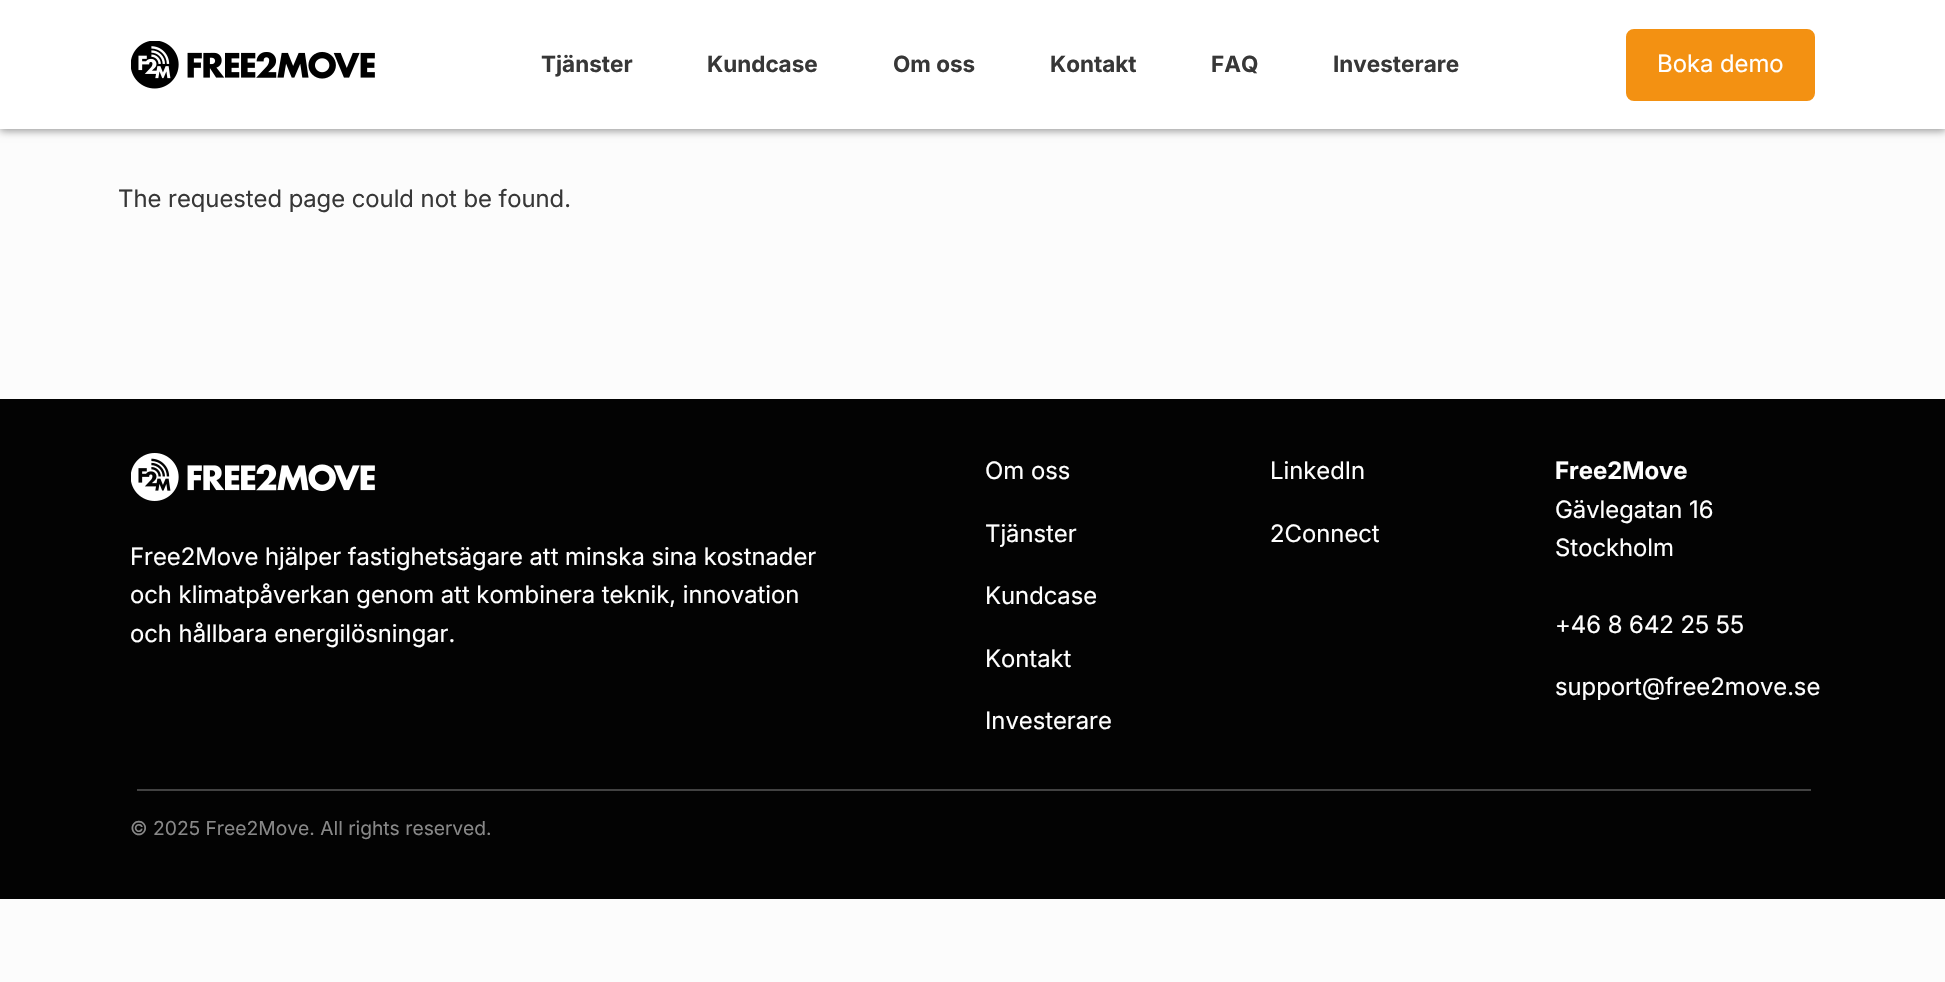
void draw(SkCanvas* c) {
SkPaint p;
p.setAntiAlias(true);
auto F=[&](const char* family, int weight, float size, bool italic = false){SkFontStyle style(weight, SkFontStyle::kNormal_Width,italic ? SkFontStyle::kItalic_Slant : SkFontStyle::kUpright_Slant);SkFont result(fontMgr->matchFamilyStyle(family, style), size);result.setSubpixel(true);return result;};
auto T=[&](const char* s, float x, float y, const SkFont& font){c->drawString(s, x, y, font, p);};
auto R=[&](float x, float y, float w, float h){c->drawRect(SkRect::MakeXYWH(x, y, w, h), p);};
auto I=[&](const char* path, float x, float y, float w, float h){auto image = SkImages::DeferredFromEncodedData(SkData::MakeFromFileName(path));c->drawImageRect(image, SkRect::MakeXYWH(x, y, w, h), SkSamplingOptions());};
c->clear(0xfffcfcfc);
p.setColor(0x66000000);
p.setMaskFilter(SkMaskFilter::MakeBlur(kNormal_SkBlurStyle, 4));
c->drawRect(SkRect::MakeXYWH(0,2,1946,129),p);
p.setMaskFilter(nullptr);
p.setColor(0xffffffff);
R(0,0,1945,129);
I("1.png",131,41,244,48);
auto f1 = F("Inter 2",700,22.5);
p.setColor(0xff373737);
T("Tjänster",541,72,f1);
T("Kundcase",707,72,f1);
T("Om oss",893,72,f1);
T("Kontakt",1050,72,f1);
T("FAQ",1211,72,f1);
T("Investerare",1333,72,f1);
p.setColor(0xfff39112);
c->drawRoundRect(SkRect::MakeXYWH(1627,30,187,70),7,7,p);
p.setStroke(true);
p.setStrokeWidth(2);
c->drawRoundRect(SkRect::MakeXYWH(1627,30,187,70),7,7,p);
auto f2 = F("Inter",400,24);
p.setStroke(false);
p.setColor(0xffffffff);
T("Boka demo",1657,72,f2);
p.setColor(0xff373737);
T("The requested page could not be found.",118,207,f2);
p.setColor(0xff030303);
R(0,399,1945,500);
I("2.png",131,453,244,48);
p.setColor(0xffffffff);
T("Free2Move hjälper fastighetsägare att minska sina kostnader",130,565,f2);
T("och klimatpåverkan genom att kombinera teknik, innovation",130,603,f2);
T("och hållbara energilösningar.",130,642,f2);
T("Om oss",985,479,f2);
T("Tjänster",985,542,f2);
T("Kundcase",985,604,f2);
T("Kontakt",985,667,f2);
T("Investerare",985,729,f2);
T("LinkedIn",1270,479,f2);
T("2Connect",1270,542,f2);
auto f3 = F("Inter",700,24);
T("Free2Move",1555,479,f3);
T("Gävlegatan 16",1555,518,f2);
T("Stockholm",1555,556,f2);
T("+46 8 642 25 55",1555,633,f2);
T("support@free2move.se",1555,695,f2);
p.setColor(0xff424242);
R(137,789,1674,2);
auto f4 = F("Inter 2",400,19.25);
p.setColor(0xff888888);
T("© 2025 Free2Move. All rights reserved.",130,835,f4);
}
